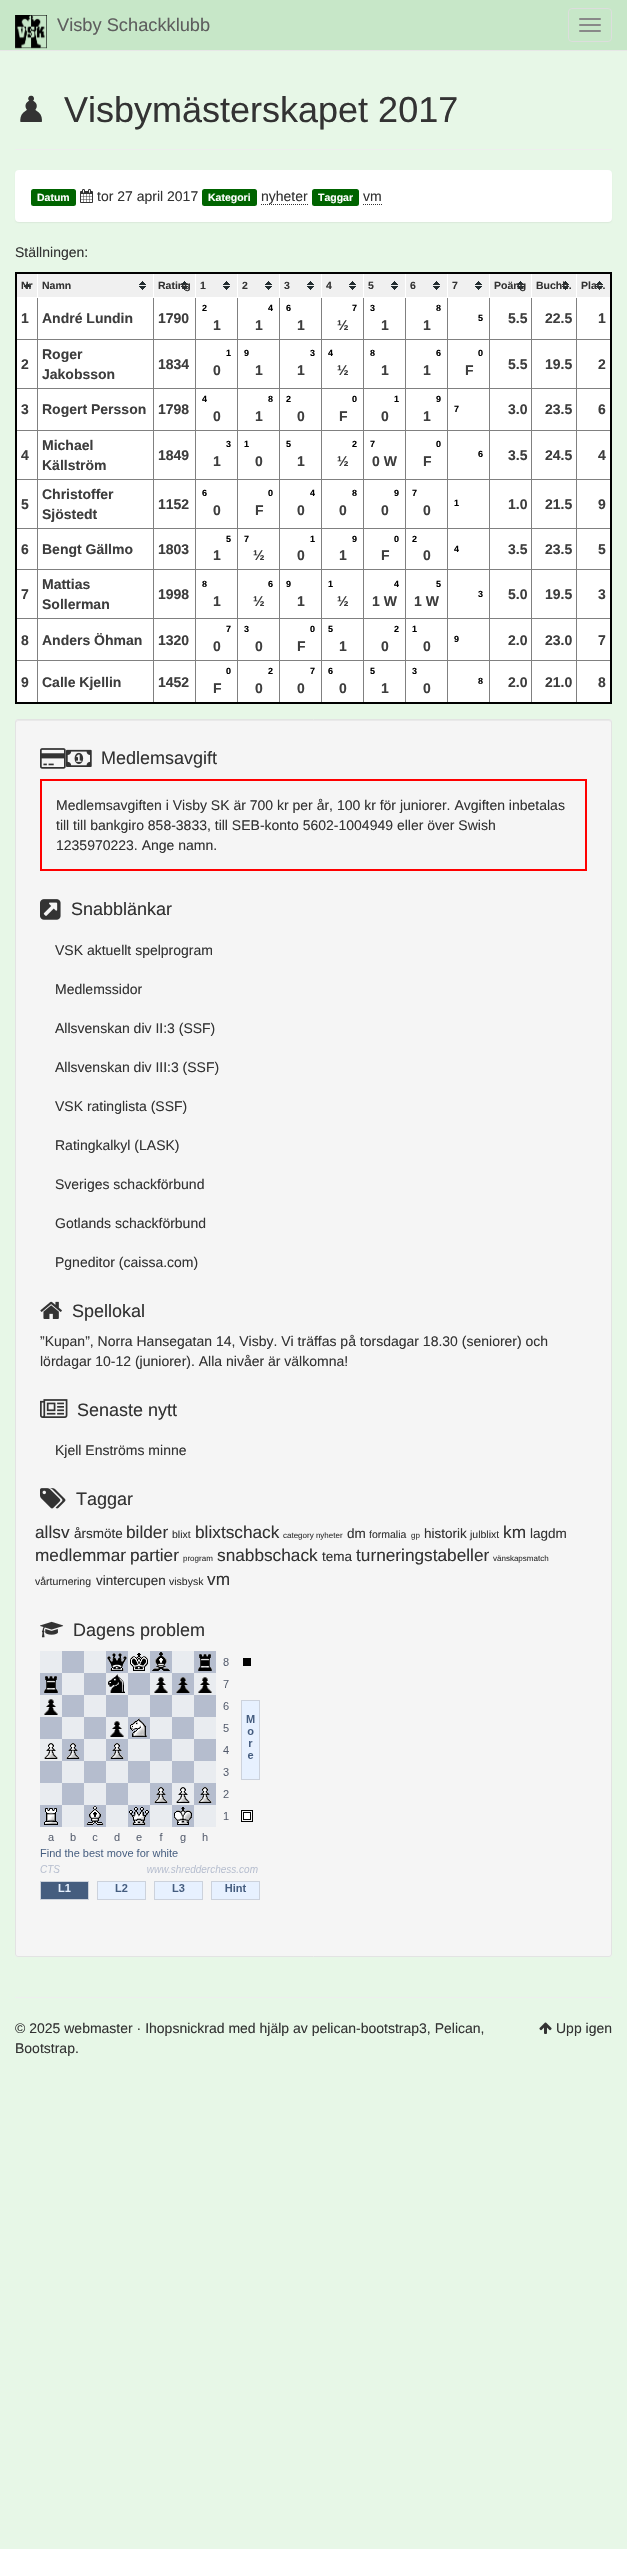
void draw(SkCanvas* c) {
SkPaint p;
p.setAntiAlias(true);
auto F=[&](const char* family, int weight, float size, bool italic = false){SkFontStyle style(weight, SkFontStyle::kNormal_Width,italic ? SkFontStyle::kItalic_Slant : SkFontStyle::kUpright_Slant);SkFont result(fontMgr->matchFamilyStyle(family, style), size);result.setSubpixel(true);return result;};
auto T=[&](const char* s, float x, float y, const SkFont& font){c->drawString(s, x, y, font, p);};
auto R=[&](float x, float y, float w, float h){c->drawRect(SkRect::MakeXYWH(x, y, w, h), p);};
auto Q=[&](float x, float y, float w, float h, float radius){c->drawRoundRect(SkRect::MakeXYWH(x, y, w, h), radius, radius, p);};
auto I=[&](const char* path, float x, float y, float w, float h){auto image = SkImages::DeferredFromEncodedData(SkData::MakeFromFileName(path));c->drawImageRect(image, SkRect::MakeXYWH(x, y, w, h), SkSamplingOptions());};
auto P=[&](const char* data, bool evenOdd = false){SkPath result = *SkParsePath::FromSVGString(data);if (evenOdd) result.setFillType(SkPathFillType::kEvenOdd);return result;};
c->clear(0xffe7f7e7);
p.setColor(0xffc7e7c8);
R(0,0,627,50);
p.setColor(0xffe7e7e7);
R(0,50,627,1);
I("1.png",15,15,32,34);
auto f1 = F("Liberation Sans",400,18.25);
p.setColor(0xff5e5e5e);
T("Visby Schackklubb",57,31,f1);
p.setStroke(true);
p.setStrokeWidth(1);
p.setColor(0xffdddddd);
c->drawRoundRect(SkRect::MakeXYWH(568.5,8.5,43,33),3.5,3.5,p);
p.setStroke(false);
p.setColor(0xff888888);
Q(579,18,22,2,1);
Q(579,24,22,2,1);
Q(579,30,22,2,1);
p.setColor(0xffeeeeee);
R(15,149,597,1);
auto f2 = F("DejaVu Sans",400,36);
p.setColor(0xff333333);
T("♟",15,122,f2);
auto f3 = F("Liberation Sans",400,36);
T("Visbymästerskapet 2017",64,122,f3);
p.setColor(0x0d000000);
p.setMaskFilter(SkMaskFilter::MakeBlur(kNormal_SkBlurStyle, .5));
c->drawRoundRect(SkRect::MakeXYWH(15,171,597,52),4,4,p);
p.setMaskFilter(nullptr);
p.setColor(0xffffffff);
Q(15,170,597,52,4);
p.setColor(0xff006400);
Q(31,189,45,17,2.5);
auto f4 = F("Liberation Sans",700,10.5);
p.setColor(0xffffffff);
T("Datum",37,201,f4);
I("2.png",80,189,13,14);
auto f5 = F("Liberation Sans",400,14);
p.setColor(0xff333333);
T("tor 27 april 2017",97,201,f5);
p.setColor(0xff006400);
Q(202,189,55,17,2.5);
p.setColor(0xffffffff);
T("Kategori",208,201,f4);
p.setColor(0xff333333);
T("nyheter",261,201,f5);
p.setStroke(true);
p.setPathEffect(SkDashPathEffect::Make({{1,1}}, 0));
c->drawPath(P("M261 204.5h47"),p);
p.setPathEffect(nullptr);
p.setStroke(false);
p.setColor(0xff006400);
Q(312,189,47,17,2.5);
p.setColor(0xffffffff);
T("Taggar",318,201,f4);
p.setColor(0xff333333);
T("vm",363,201,f5);
p.setStroke(true);
p.setPathEffect(SkDashPathEffect::Make({{1,1}}, 0));
c->drawPath(P("M363 204.5h19"),p);
p.setPathEffect(nullptr);
p.setStroke(false);
T("Ställningen:",15,257,f5);
p.setColor(0xff808080);
R(16,339,596,1);
R(16,388,596,1);
R(16,430,596,1);
R(16,479,596,1);
R(16,528,596,1);
R(16,569,596,1);
R(16,618,596,1);
R(16,660,596,1);
R(576,660,1,44);
R(576,618,1,43);
R(576,569,1,50);
R(576,528,1,42);
R(576,479,1,50);
R(576,430,1,50);
R(576,388,1,43);
R(576,297,1,92);
p.setColor(0xffffffff);
R(576,297,36,1);
R(576,272,1,26);
p.setColor(0xff808080);
R(531,660,1,44);
R(531,618,1,43);
R(531,569,1,50);
R(531,528,1,42);
R(531,479,1,50);
R(531,430,1,50);
R(531,388,1,43);
R(531,297,1,92);
p.setColor(0xffffffff);
R(531,297,46,1);
R(531,272,1,26);
p.setColor(0xff808080);
R(489,660,1,44);
R(489,618,1,43);
R(489,569,1,50);
R(489,528,1,42);
R(489,479,1,50);
R(489,430,1,50);
R(489,388,1,43);
R(489,297,1,92);
p.setColor(0xffffffff);
R(489,297,43,1);
R(489,272,1,26);
p.setColor(0xff808080);
R(447,660,1,44);
R(447,618,1,43);
R(447,569,1,50);
R(447,528,1,42);
R(447,479,1,50);
R(447,430,1,50);
R(447,388,1,43);
R(447,297,1,92);
p.setColor(0xffffffff);
R(447,297,43,1);
R(447,272,1,26);
p.setColor(0xff808080);
R(405,660,1,44);
R(405,618,1,43);
R(405,569,1,50);
R(405,528,1,42);
R(405,479,1,50);
R(405,430,1,50);
R(405,388,1,43);
R(405,297,1,92);
p.setColor(0xffffffff);
R(405,297,43,1);
R(405,272,1,26);
p.setColor(0xff808080);
R(363,660,1,44);
R(363,618,1,43);
R(363,569,1,50);
R(363,528,1,42);
R(363,479,1,50);
R(363,430,1,50);
R(363,388,1,43);
R(363,297,1,92);
p.setColor(0xffffffff);
R(363,297,43,1);
R(363,272,1,26);
p.setColor(0xff808080);
R(321,660,1,44);
R(321,618,1,43);
R(321,569,1,50);
R(321,528,1,42);
R(321,479,1,50);
R(321,430,1,50);
R(321,388,1,43);
R(321,297,1,92);
p.setColor(0xffffffff);
R(321,297,43,1);
R(321,272,1,26);
p.setColor(0xff808080);
R(279,660,1,44);
R(279,618,1,43);
R(279,569,1,50);
R(279,528,1,42);
R(279,479,1,50);
R(279,430,1,50);
R(279,388,1,43);
R(279,297,1,92);
p.setColor(0xffffffff);
R(279,297,43,1);
R(279,272,1,26);
p.setColor(0xff808080);
R(237,660,1,44);
R(237,618,1,43);
R(237,569,1,50);
R(237,528,1,42);
R(237,479,1,50);
R(237,430,1,50);
R(237,388,1,43);
R(237,297,1,92);
p.setColor(0xffffffff);
R(237,297,43,1);
R(237,272,1,26);
p.setColor(0xff808080);
R(195,660,1,44);
R(195,618,1,43);
R(195,569,1,50);
R(195,528,1,42);
R(195,479,1,50);
R(195,430,1,50);
R(195,388,1,43);
R(195,297,1,92);
p.setColor(0xffffffff);
R(195,297,43,1);
R(195,272,1,26);
p.setColor(0xff808080);
R(153,660,1,44);
R(153,618,1,43);
R(153,569,1,50);
R(153,528,1,42);
R(153,479,1,50);
R(153,430,1,50);
R(153,388,1,43);
R(153,297,1,92);
p.setColor(0xffffffff);
R(153,297,43,1);
R(153,272,1,26);
p.setColor(0xff808080);
R(37,660,1,44);
R(37,618,1,43);
R(37,569,1,50);
R(37,528,1,42);
R(37,479,1,50);
R(37,430,1,50);
R(37,388,1,43);
R(37,297,1,92);
p.setColor(0xffffffff);
R(37,297,117,1);
R(37,272,1,26);
p.setColor(0xff000000);
R(15,272,597,2);
R(610,272,2,432);
R(15,702,597,2);
p.setColor(0xffffffff);
R(16,297,22,1);
p.setColor(0xff000000);
R(15,272,2,432);
I("3.png",17,274,20,23);
p.setColor(0xff333333);
T("Nr",21,289,f4);
I("4.png",38,274,115,23);
T("Namn",42,289,f4);
I("5.png",154,274,41,23);
T("Rating",158,289,f4);
I("5.png",196,274,41,23);
T("1",200,289,f4);
I("5.png",238,274,41,23);
T("2",242,289,f4);
I("5.png",280,274,41,23);
T("3",284,289,f4);
I("5.png",322,274,41,23);
T("4",326,289,f4);
I("5.png",364,274,41,23);
T("5",368,289,f4);
I("5.png",406,274,41,23);
T("6",410,289,f4);
I("5.png",448,274,41,23);
T("7",452,289,f4);
I("5.png",490,274,41,23);
T("Poäng",494,289,f4);
I("6.png",532,274,44,23);
T("Buchh.",536,289,f4);
I("7.png",577,274,33,23);
T("Plac.",581,289,f4);
p.setColor(0xffffffff);
R(17,298,20,41);
auto f6 = F("Liberation Sans",700,14);
p.setColor(0xff3d3d3d);
T("1",21,323,f6);
p.setColor(0xffffffff);
R(38,298,115,41);
p.setColor(0xff3d3d3d);
T("André Lundin",42,323,f6);
p.setColor(0xffffffff);
R(154,298,41,41);
p.setColor(0xff3d3d3d);
T("1790",158,323,f6);
p.setColor(0xffffffff);
R(196,298,41,41);
auto f7 = F("Liberation Sans",700,9);
p.setColor(0xff000000);
T("2",202,311,f7);
p.setColor(0xff3d3d3d);
T("1",213,330,f6);
p.setColor(0xffffffff);
R(238,298,41,41);
p.setColor(0xff000000);
T("4",268,311,f7);
p.setColor(0xff3d3d3d);
T("1",255,330,f6);
p.setColor(0xffffffff);
R(280,298,41,41);
p.setColor(0xff000000);
T("6",286,311,f7);
p.setColor(0xff3d3d3d);
T("1",297,330,f6);
p.setColor(0xffffffff);
R(322,298,41,41);
p.setColor(0xff000000);
T("7",352,311,f7);
p.setColor(0xff3d3d3d);
T("½",337,330,f6);
p.setColor(0xffffffff);
R(364,298,41,41);
p.setColor(0xff000000);
T("3",370,311,f7);
p.setColor(0xff3d3d3d);
T("1",381,330,f6);
p.setColor(0xffffffff);
R(406,298,41,41);
p.setColor(0xff000000);
T("8",436,311,f7);
p.setColor(0xff3d3d3d);
T("1",423,330,f6);
p.setColor(0xffffffff);
R(448,298,41,41);
p.setColor(0xff000000);
T("5",478,321,f7);
p.setColor(0xffffffff);
R(490,298,41,41);
p.setColor(0xff3d3d3d);
T("5.5",508,323,f6);
p.setColor(0xffffffff);
R(532,298,44,41);
p.setColor(0xff3d3d3d);
T("22.5",545,323,f6);
p.setColor(0xffffffff);
R(577,298,33,41);
p.setColor(0xff3d3d3d);
T("1",598,323,f6);
p.setColor(0xffffffff);
R(17,340,20,48);
p.setColor(0xff3d3d3d);
T("2",21,369,f6);
p.setColor(0xffffffff);
R(38,340,115,48);
p.setColor(0xff3d3d3d);
T("Roger",42,359,f6);
T("Jakobsson",42,379,f6);
p.setColor(0xffffffff);
R(154,340,41,48);
p.setColor(0xff3d3d3d);
T("1834",158,369,f6);
p.setColor(0xffffffff);
R(196,340,41,48);
p.setColor(0xff000000);
T("1",226,356,f7);
p.setColor(0xff3d3d3d);
T("0",213,375,f6);
p.setColor(0xffffffff);
R(238,340,41,48);
p.setColor(0xff000000);
T("9",244,356,f7);
p.setColor(0xff3d3d3d);
T("1",255,375,f6);
p.setColor(0xffffffff);
R(280,340,41,48);
p.setColor(0xff000000);
T("3",310,356,f7);
p.setColor(0xff3d3d3d);
T("1",297,375,f6);
p.setColor(0xffffffff);
R(322,340,41,48);
p.setColor(0xff000000);
T("4",328,356,f7);
p.setColor(0xff3d3d3d);
T("½",337,375,f6);
p.setColor(0xffffffff);
R(364,340,41,48);
p.setColor(0xff000000);
T("8",370,356,f7);
p.setColor(0xff3d3d3d);
T("1",381,375,f6);
p.setColor(0xffffffff);
R(406,340,41,48);
p.setColor(0xff000000);
T("6",436,356,f7);
p.setColor(0xff3d3d3d);
T("1",423,375,f6);
p.setColor(0xffffffff);
R(448,340,41,48);
p.setColor(0xff000000);
T("0",478,356,f7);
p.setColor(0xff3d3d3d);
T("F",465,375,f6);
p.setColor(0xffffffff);
R(490,340,41,48);
p.setColor(0xff3d3d3d);
T("5.5",508,369,f6);
p.setColor(0xffffffff);
R(532,340,44,48);
p.setColor(0xff3d3d3d);
T("19.5",545,369,f6);
p.setColor(0xffffffff);
R(577,340,33,48);
p.setColor(0xff3d3d3d);
T("2",598,369,f6);
p.setColor(0xffffffff);
R(17,389,20,41);
p.setColor(0xff3d3d3d);
T("3",21,414,f6);
p.setColor(0xffffffff);
R(38,389,115,41);
p.setColor(0xff3d3d3d);
T("Rogert Persson",42,414,f6);
p.setColor(0xffffffff);
R(154,389,41,41);
p.setColor(0xff3d3d3d);
T("1798",158,414,f6);
p.setColor(0xffffffff);
R(196,389,41,41);
p.setColor(0xff000000);
T("4",202,402,f7);
p.setColor(0xff3d3d3d);
T("0",213,421,f6);
p.setColor(0xffffffff);
R(238,389,41,41);
p.setColor(0xff000000);
T("8",268,402,f7);
p.setColor(0xff3d3d3d);
T("1",255,421,f6);
p.setColor(0xffffffff);
R(280,389,41,41);
p.setColor(0xff000000);
T("2",286,402,f7);
p.setColor(0xff3d3d3d);
T("0",297,421,f6);
p.setColor(0xffffffff);
R(322,389,41,41);
p.setColor(0xff000000);
T("0",352,402,f7);
p.setColor(0xff3d3d3d);
T("F",339,421,f6);
p.setColor(0xffffffff);
R(364,389,41,41);
p.setColor(0xff000000);
T("1",394,402,f7);
p.setColor(0xff3d3d3d);
T("0",381,421,f6);
p.setColor(0xffffffff);
R(406,389,41,41);
p.setColor(0xff000000);
T("9",436,402,f7);
p.setColor(0xff3d3d3d);
T("1",423,421,f6);
p.setColor(0xffffffff);
R(448,389,41,41);
p.setColor(0xff000000);
T("7",454,412,f7);
p.setColor(0xffffffff);
R(490,389,41,41);
p.setColor(0xff3d3d3d);
T("3.0",508,414,f6);
p.setColor(0xffffffff);
R(532,389,44,41);
p.setColor(0xff3d3d3d);
T("23.5",545,414,f6);
p.setColor(0xffffffff);
R(577,389,33,41);
p.setColor(0xff3d3d3d);
T("6",598,414,f6);
p.setColor(0xffffffff);
R(17,431,20,48);
p.setColor(0xff3d3d3d);
T("4",21,460,f6);
p.setColor(0xffffffff);
R(38,431,115,48);
p.setColor(0xff3d3d3d);
T("Michael",42,450,f6);
T("Källström",42,470,f6);
p.setColor(0xffffffff);
R(154,431,41,48);
p.setColor(0xff3d3d3d);
T("1849",158,460,f6);
p.setColor(0xffffffff);
R(196,431,41,48);
p.setColor(0xff000000);
T("3",226,447,f7);
p.setColor(0xff3d3d3d);
T("1",213,466,f6);
p.setColor(0xffffffff);
R(238,431,41,48);
p.setColor(0xff000000);
T("1",244,447,f7);
p.setColor(0xff3d3d3d);
T("0",255,466,f6);
p.setColor(0xffffffff);
R(280,431,41,48);
p.setColor(0xff000000);
T("5",286,447,f7);
p.setColor(0xff3d3d3d);
T("1",297,466,f6);
p.setColor(0xffffffff);
R(322,431,41,48);
p.setColor(0xff000000);
T("2",352,447,f7);
p.setColor(0xff3d3d3d);
T("½",337,466,f6);
p.setColor(0xffffffff);
R(364,431,41,48);
p.setColor(0xff000000);
T("7",370,447,f7);
p.setColor(0xff3d3d3d);
T("0 W",372,466,f6);
p.setColor(0xffffffff);
R(406,431,41,48);
p.setColor(0xff000000);
T("0",436,447,f7);
p.setColor(0xff3d3d3d);
T("F",423,466,f6);
p.setColor(0xffffffff);
R(448,431,41,48);
p.setColor(0xff000000);
T("6",478,457,f7);
p.setColor(0xffffffff);
R(490,431,41,48);
p.setColor(0xff3d3d3d);
T("3.5",508,460,f6);
p.setColor(0xffffffff);
R(532,431,44,48);
p.setColor(0xff3d3d3d);
T("24.5",545,460,f6);
p.setColor(0xffffffff);
R(577,431,33,48);
p.setColor(0xff3d3d3d);
T("4",598,460,f6);
p.setColor(0xffffffff);
R(17,480,20,48);
p.setColor(0xff3d3d3d);
T("5",21,509,f6);
p.setColor(0xffffffff);
R(38,480,115,48);
p.setColor(0xff3d3d3d);
T("Christoffer",42,499,f6);
T("Sjöstedt",42,519,f6);
p.setColor(0xffffffff);
R(154,480,41,48);
p.setColor(0xff3d3d3d);
T("1152",158,509,f6);
p.setColor(0xffffffff);
R(196,480,41,48);
p.setColor(0xff000000);
T("6",202,496,f7);
p.setColor(0xff3d3d3d);
T("0",213,515,f6);
p.setColor(0xffffffff);
R(238,480,41,48);
p.setColor(0xff000000);
T("0",268,496,f7);
p.setColor(0xff3d3d3d);
T("F",255,515,f6);
p.setColor(0xffffffff);
R(280,480,41,48);
p.setColor(0xff000000);
T("4",310,496,f7);
p.setColor(0xff3d3d3d);
T("0",297,515,f6);
p.setColor(0xffffffff);
R(322,480,41,48);
p.setColor(0xff000000);
T("8",352,496,f7);
p.setColor(0xff3d3d3d);
T("0",339,515,f6);
p.setColor(0xffffffff);
R(364,480,41,48);
p.setColor(0xff000000);
T("9",394,496,f7);
p.setColor(0xff3d3d3d);
T("0",381,515,f6);
p.setColor(0xffffffff);
R(406,480,41,48);
p.setColor(0xff000000);
T("7",412,496,f7);
p.setColor(0xff3d3d3d);
T("0",423,515,f6);
p.setColor(0xffffffff);
R(448,480,41,48);
p.setColor(0xff000000);
T("1",454,506,f7);
p.setColor(0xffffffff);
R(490,480,41,48);
p.setColor(0xff3d3d3d);
T("1.0",508,509,f6);
p.setColor(0xffffffff);
R(532,480,44,48);
p.setColor(0xff3d3d3d);
T("21.5",545,509,f6);
p.setColor(0xffffffff);
R(577,480,33,48);
p.setColor(0xff3d3d3d);
T("9",598,509,f6);
p.setColor(0xffffffff);
R(17,529,20,40);
p.setColor(0xff3d3d3d);
T("6",21,554,f6);
p.setColor(0xffffffff);
R(38,529,115,40);
p.setColor(0xff3d3d3d);
T("Bengt Gällmo",42,554,f6);
p.setColor(0xffffffff);
R(154,529,41,40);
p.setColor(0xff3d3d3d);
T("1803",158,554,f6);
p.setColor(0xffffffff);
R(196,529,41,40);
p.setColor(0xff000000);
T("5",226,542,f7);
p.setColor(0xff3d3d3d);
T("1",213,560,f6);
p.setColor(0xffffffff);
R(238,529,41,40);
p.setColor(0xff000000);
T("7",244,542,f7);
p.setColor(0xff3d3d3d);
T("½",253,560,f6);
p.setColor(0xffffffff);
R(280,529,41,40);
p.setColor(0xff000000);
T("1",310,542,f7);
p.setColor(0xff3d3d3d);
T("0",297,560,f6);
p.setColor(0xffffffff);
R(322,529,41,40);
p.setColor(0xff000000);
T("9",352,542,f7);
p.setColor(0xff3d3d3d);
T("1",339,560,f6);
p.setColor(0xffffffff);
R(364,529,41,40);
p.setColor(0xff000000);
T("0",394,542,f7);
p.setColor(0xff3d3d3d);
T("F",381,560,f6);
p.setColor(0xffffffff);
R(406,529,41,40);
p.setColor(0xff000000);
T("2",412,542,f7);
p.setColor(0xff3d3d3d);
T("0",423,560,f6);
p.setColor(0xffffffff);
R(448,529,41,40);
p.setColor(0xff000000);
T("4",454,552,f7);
p.setColor(0xffffffff);
R(490,529,41,40);
p.setColor(0xff3d3d3d);
T("3.5",508,554,f6);
p.setColor(0xffffffff);
R(532,529,44,40);
p.setColor(0xff3d3d3d);
T("23.5",545,554,f6);
p.setColor(0xffffffff);
R(577,529,33,40);
p.setColor(0xff3d3d3d);
T("5",598,554,f6);
p.setColor(0xffffffff);
R(17,570,20,48);
p.setColor(0xff3d3d3d);
T("7",21,599,f6);
p.setColor(0xffffffff);
R(38,570,115,48);
p.setColor(0xff3d3d3d);
T("Mattias",42,589,f6);
T("Sollerman",42,609,f6);
p.setColor(0xffffffff);
R(154,570,41,48);
p.setColor(0xff3d3d3d);
T("1998",158,599,f6);
p.setColor(0xffffffff);
R(196,570,41,48);
p.setColor(0xff000000);
T("8",202,587,f7);
p.setColor(0xff3d3d3d);
T("1",213,606,f6);
p.setColor(0xffffffff);
R(238,570,41,48);
p.setColor(0xff000000);
T("6",268,587,f7);
p.setColor(0xff3d3d3d);
T("½",253,606,f6);
p.setColor(0xffffffff);
R(280,570,41,48);
p.setColor(0xff000000);
T("9",286,587,f7);
p.setColor(0xff3d3d3d);
T("1",297,606,f6);
p.setColor(0xffffffff);
R(322,570,41,48);
p.setColor(0xff000000);
T("1",328,587,f7);
p.setColor(0xff3d3d3d);
T("½",337,606,f6);
p.setColor(0xffffffff);
R(364,570,41,48);
p.setColor(0xff000000);
T("4",394,587,f7);
p.setColor(0xff3d3d3d);
T("1 W",372,606,f6);
p.setColor(0xffffffff);
R(406,570,41,48);
p.setColor(0xff000000);
T("5",436,587,f7);
p.setColor(0xff3d3d3d);
T("1 W",414,606,f6);
p.setColor(0xffffffff);
R(448,570,41,48);
p.setColor(0xff000000);
T("3",478,597,f7);
p.setColor(0xffffffff);
R(490,570,41,48);
p.setColor(0xff3d3d3d);
T("5.0",508,599,f6);
p.setColor(0xffffffff);
R(532,570,44,48);
p.setColor(0xff3d3d3d);
T("19.5",545,599,f6);
p.setColor(0xffffffff);
R(577,570,33,48);
p.setColor(0xff3d3d3d);
T("3",598,599,f6);
p.setColor(0xffffffff);
R(17,619,20,41);
p.setColor(0xff3d3d3d);
T("8",21,645,f6);
p.setColor(0xffffffff);
R(38,619,115,41);
p.setColor(0xff3d3d3d);
T("Anders Öhman",42,645,f6);
p.setColor(0xffffffff);
R(154,619,41,41);
p.setColor(0xff3d3d3d);
T("1320",158,645,f6);
p.setColor(0xffffffff);
R(196,619,41,41);
p.setColor(0xff000000);
T("7",226,632,f7);
p.setColor(0xff3d3d3d);
T("0",213,651,f6);
p.setColor(0xffffffff);
R(238,619,41,41);
p.setColor(0xff000000);
T("3",244,632,f7);
p.setColor(0xff3d3d3d);
T("0",255,651,f6);
p.setColor(0xffffffff);
R(280,619,41,41);
p.setColor(0xff000000);
T("0",310,632,f7);
p.setColor(0xff3d3d3d);
T("F",297,651,f6);
p.setColor(0xffffffff);
R(322,619,41,41);
p.setColor(0xff000000);
T("5",328,632,f7);
p.setColor(0xff3d3d3d);
T("1",339,651,f6);
p.setColor(0xffffffff);
R(364,619,41,41);
p.setColor(0xff000000);
T("2",394,632,f7);
p.setColor(0xff3d3d3d);
T("0",381,651,f6);
p.setColor(0xffffffff);
R(406,619,41,41);
p.setColor(0xff000000);
T("1",412,632,f7);
p.setColor(0xff3d3d3d);
T("0",423,651,f6);
p.setColor(0xffffffff);
R(448,619,41,41);
p.setColor(0xff000000);
T("9",454,642,f7);
p.setColor(0xffffffff);
R(490,619,41,41);
p.setColor(0xff3d3d3d);
T("2.0",508,645,f6);
p.setColor(0xffffffff);
R(532,619,44,41);
p.setColor(0xff3d3d3d);
T("23.0",545,645,f6);
p.setColor(0xffffffff);
R(577,619,33,41);
p.setColor(0xff3d3d3d);
T("7",598,645,f6);
p.setColor(0xffffffff);
R(17,661,20,41);
p.setColor(0xff3d3d3d);
T("9",21,687,f6);
p.setColor(0xffffffff);
R(38,661,115,41);
p.setColor(0xff3d3d3d);
T("Calle Kjellin",42,687,f6);
p.setColor(0xffffffff);
R(154,661,41,41);
p.setColor(0xff3d3d3d);
T("1452",158,687,f6);
p.setColor(0xffffffff);
R(196,661,41,41);
p.setColor(0xff000000);
T("0",226,674,f7);
p.setColor(0xff3d3d3d);
T("F",213,693,f6);
p.setColor(0xffffffff);
R(238,661,41,41);
p.setColor(0xff000000);
T("2",268,674,f7);
p.setColor(0xff3d3d3d);
T("0",255,693,f6);
p.setColor(0xffffffff);
R(280,661,41,41);
p.setColor(0xff000000);
T("7",310,674,f7);
p.setColor(0xff3d3d3d);
T("0",297,693,f6);
p.setColor(0xffffffff);
R(322,661,41,41);
p.setColor(0xff000000);
T("6",328,674,f7);
p.setColor(0xff3d3d3d);
T("0",339,693,f6);
p.setColor(0xffffffff);
R(364,661,41,41);
p.setColor(0xff000000);
T("5",370,674,f7);
p.setColor(0xff3d3d3d);
T("1",381,693,f6);
p.setColor(0xffffffff);
R(406,661,41,41);
p.setColor(0xff000000);
T("3",412,674,f7);
p.setColor(0xff3d3d3d);
T("0",423,693,f6);
p.setColor(0xffffffff);
R(448,661,41,41);
p.setColor(0xff000000);
T("8",478,684,f7);
p.setColor(0xffffffff);
R(490,661,41,41);
p.setColor(0xff3d3d3d);
T("2.0",508,687,f6);
p.setColor(0xffffffff);
R(532,661,44,41);
p.setColor(0xff3d3d3d);
T("21.0",545,687,f6);
p.setColor(0xffffffff);
R(577,661,33,41);
p.setColor(0xff3d3d3d);
T("8",598,687,f6);
p.setColor(0xfff5f5f5);
Q(15,719,597,1238,3);
p.setColor(0xffe9e9e9);
c->drawPath(P("M18 721h591c1 0 2 1 2 2c0-1 0-3-2-3h-591l-2 1v2c0-1 1-2 2-2z"),p);
p.setStroke(true);
p.setColor(0xffe3e3e3);
c->drawRoundRect(SkRect::MakeXYWH(15.5,719.5,596,1237),2.5,2.5,p);
I("8.png",40,748,26,21);
I("9.png",66,749,26,18);
auto f8 = F("Liberation Sans",400,18);
p.setStroke(false);
p.setColor(0xff333333);
T("Medlemsavgift",101,764,f8);
p.setStroke(true);
p.setStrokeWidth(2);
p.setColor(0xffff0000);
c->drawRect(SkRect::MakeXYWH(41,780,545,90),p);
p.setStroke(false);
p.setColor(0xff333333);
T("Medlemsavgiften i Visby SK är 700 kr per år, 100 kr för juniorer. Avgiften inbetalas",56,810,f5);
T("till till bankgiro 858-3833, till SEB-konto 5602-1004949 eller över Swish",56,830,f5);
T("1235970223. Ange namn.",56,850,f5);
I("10.png",40,899,21,21);
T("Snabblänkar",71,915,f8);
T("VSK aktuellt spelprogram",55,955,f5);
T("Medlemssidor",55,994,f5);
T("Allsvenskan div II:3 (SSF)",55,1033,f5);
T("Allsvenskan div III:3 (SSF)",55,1072,f5);
T("VSK ratinglista (SSF)",55,1111,f5);
T("Ratingkalkyl (LASK)",55,1150,f5);
T("Sveriges schackförbund",55,1189,f5);
T("Gotlands schackförbund",55,1228,f5);
T("Pgneditor (caissa.com)",55,1267,f5);
I("11.png",40,1301,22,18);
T("Spellokal",72,1317,f8);
T("”Kupan”, Norra Hansegatan 14, Visby. Vi träffas på torsdagar 18.30 (seniorer) och",40,1346,f5);
T("lördagar 10-12 (juniorer). Alla nivåer är välkomna!",40,1366,f5);
I("12.png",40,1399,28,19);
T("Senaste nytt",77,1416,f8);
T("Kjell Enströms minne",55,1455,f5);
I("13.png",40,1488,26,21);
T("Taggar",76,1505,f8);
auto f9 = F("Liberation Sans",400,17.25);
T("allsv",35,1538,f9);
auto f10 = F("Liberation Sans",400,13.5);
T("årsmöte",74,1538,f10);
T("bilder",126,1538,f9);
auto f11 = F("Liberation Sans",400,10.5);
T("blixt",172,1538,f11);
T("blixtschack",195,1538,f9);
auto f12 = F("Liberation Sans",400,8);
T("category nyheter",283,1538,f12);
T("dm",347,1538,f10);
T("formalia",369,1538,f11);
T("gp",411,1538,f12);
T("historik",424,1538,f10);
T("julblixt",470,1538,f11);
T("km",503,1538,f9);
T("lagdm",530,1538,f10);
T("medlemmar",35,1561,f9);
T("partier",130,1561,f9);
T("program",183,1561,f12);
T("snabbschack",217,1561,f9);
T("tema",322,1561,f10);
T("turneringstabeller",356,1561,f9);
T("vänskapsmatch",493,1561,f12);
T("vårturnering",35,1585,f11);
T("vintercupen",96,1585,f10);
T("visbysk",169,1585,f11);
T("vm",207,1585,f9);
I("14.png",40,1621,24,17);
T("Dagens problem",73,1636,f8);
I("15.png",40,1651,220,249);
p.setColor(0xffeeeeee);
R(15,1997,597,1);
p.setColor(0xff333333);
T("© 2025 webmaster · Ihopsnickrad med hjälp av pelican-bootstrap3, Pelican,",15,2033,f5);
T("Bootstrap.",15,2053,f5);
I("16.png",539,2022,13,12);
T("Upp igen",556,2033,f5);
}
